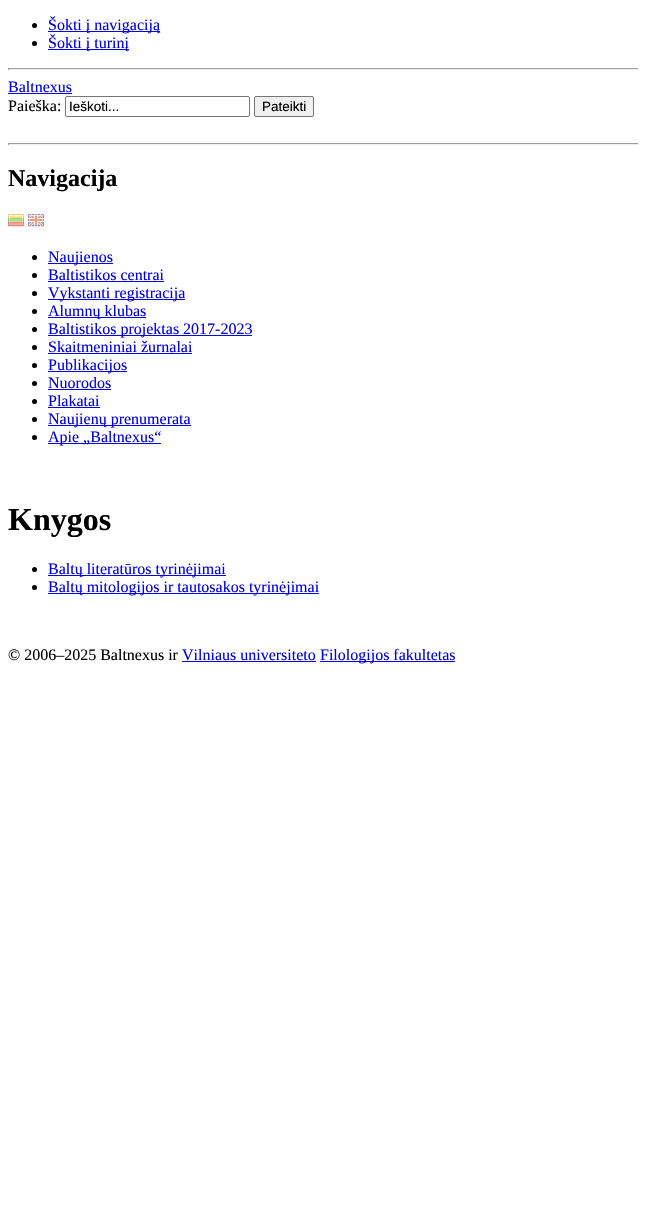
void draw(SkCanvas* c) {
SkPaint p;
p.setAntiAlias(true);
auto F=[&](const char* family, int weight, float size, bool italic = false){SkFontStyle style(weight, SkFontStyle::kNormal_Width,italic ? SkFontStyle::kItalic_Slant : SkFontStyle::kUpright_Slant);SkFont result(fontMgr->matchFamilyStyle(family, style), size);result.setSubpixel(true);return result;};
auto T=[&](const char* s, float x, float y, const SkFont& font){c->drawString(s, x, y, font, p);};
auto R=[&](float x, float y, float w, float h){c->drawRect(SkRect::MakeXYWH(x, y, w, h), p);};
auto I=[&](const char* path, float x, float y, float w, float h){auto image = SkImages::DeferredFromEncodedData(SkData::MakeFromFileName(path));c->drawImageRect(image, SkRect::MakeXYWH(x, y, w, h), SkSamplingOptions());};
c->clear(0xffffffff);
p.setColor(0xff000000);
c->drawCircle(34.5,25.5,2.5,p);
p.setColor(0xff0000ee);
R(48,31,112,1);
auto f1 = F("Liberation Serif",400,16);
T("Šokti į navigaciją",48,30,f1);
p.setColor(0xff000000);
c->drawCircle(34.5,43.5,2.5,p);
p.setColor(0xff0000ee);
R(48,49,81,1);
T("Šokti į turinį",48,48,f1);
p.setColor(0xff9f9f9f);
R(8,68,631,1);
p.setColor(0xffeeeeee);
R(638,68,1,2);
R(8,69,631,1);
p.setColor(0xff9f9f9f);
R(8,68,1,2);
p.setColor(0xff0000ee);
T("Baltnexus",8,92,f1);
R(8,93,64,1);
p.setColor(0xff000000);
T("Paieška:",8,111,f1);
p.setStroke(true);
p.setStrokeWidth(1);
p.setColor(0xff767676);
c->drawRoundRect(SkRect::MakeXYWH(65.5,96.5,184,20),1.5,1.5,p);
auto f2 = F("Liberation Sans",400,13.5);
p.setStroke(false);
p.setColor(0xff000000);
T("Ieškoti...",69,111,f2);
p.setColor(0xffefefef);
c->drawRoundRect(SkRect::MakeXYWH(254.5,96.5,59,20),1.5,1.5,p);
p.setStroke(true);
p.setColor(0xff767676);
c->drawRoundRect(SkRect::MakeXYWH(254.5,96.5,59,20),1.5,1.5,p);
p.setStroke(false);
p.setColor(0xff000000);
T("Pateikti",262,111,f2);
p.setColor(0xff9f9f9f);
R(8,143,631,1);
p.setColor(0xffeeeeee);
R(638,143,1,2);
R(8,144,631,1);
p.setColor(0xff9f9f9f);
R(8,143,1,2);
auto f3 = F("Liberation Serif",700,24);
p.setColor(0xff000000);
T("Navigacija",8,186,f3);
I("1.png",8,214,16,13);
I("2.png",28,214,16,13);
c->drawCircle(34.5,257.5,2.5,p);
p.setColor(0xff0000ee);
R(48,263,65,1);
T("Naujienos",48,262,f1);
p.setColor(0xff000000);
c->drawCircle(34.5,275.5,2.5,p);
p.setColor(0xff0000ee);
T("Baltistikos centrai",48,280,f1);
R(48,281,116,1);
p.setColor(0xff000000);
c->drawCircle(34.5,293.5,2.5,p);
p.setColor(0xff0000ee);
R(48,299,137,1);
T("Vykstanti registracija",48,298,f1);
p.setColor(0xff000000);
c->drawCircle(34.5,311.5,2.5,p);
p.setColor(0xff0000ee);
R(48,317,98,1);
T("Alumnų klubas",48,316,f1);
p.setColor(0xff000000);
c->drawCircle(34.5,329.5,2.5,p);
p.setColor(0xff0000ee);
R(48,335,204,1);
T("Baltistikos projektas 2017-2023",48,334,f1);
p.setColor(0xff000000);
c->drawCircle(34.5,347.5,2.5,p);
p.setColor(0xff0000ee);
T("Skaitmeniniai žurnalai",48,352,f1);
R(48,353,144,1);
p.setColor(0xff000000);
c->drawCircle(34.5,365.5,2.5,p);
p.setColor(0xff0000ee);
R(48,371,79,1);
T("Publikacijos",48,370,f1);
p.setColor(0xff000000);
c->drawCircle(34.5,383.5,2.5,p);
p.setColor(0xff0000ee);
T("Nuorodos",48,388,f1);
R(48,389,63,1);
p.setColor(0xff000000);
c->drawCircle(34.5,401.5,2.5,p);
p.setColor(0xff0000ee);
T("Plakatai",48,406,f1);
R(48,407,52,1);
p.setColor(0xff000000);
c->drawCircle(34.5,419.5,2.5,p);
p.setColor(0xff0000ee);
R(48,425,143,1);
T("Naujienų prenumerata",48,424,f1);
p.setColor(0xff000000);
c->drawCircle(34.5,437.5,2.5,p);
p.setColor(0xff0000ee);
R(48,443,113,1);
T("Apie „Baltnexus“",48,442,f1);
auto f4 = F("Liberation Serif",700,32);
p.setColor(0xff000000);
T("Knygos",8,530,f4);
c->drawCircle(34.5,569.5,2.5,p);
p.setColor(0xff0000ee);
R(48,575,178,1);
T("Baltų literatūros tyrinėjimai",48,574,f1);
p.setColor(0xff000000);
c->drawCircle(34.5,587.5,2.5,p);
p.setColor(0xff0000ee);
R(48,593,271,1);
T("Baltų mitologijos ir tautosakos tyrinėjimai",48,592,f1);
p.setColor(0xff000000);
T("© 2006–2025 Baltnexus ir",8,660,f1);
p.setColor(0xff0000ee);
T("Vilniaus universiteto",182,660,f1);
R(182,661,134,1);
R(320,661,135,1);
T("Filologijos fakultetas",320,660,f1);
}
